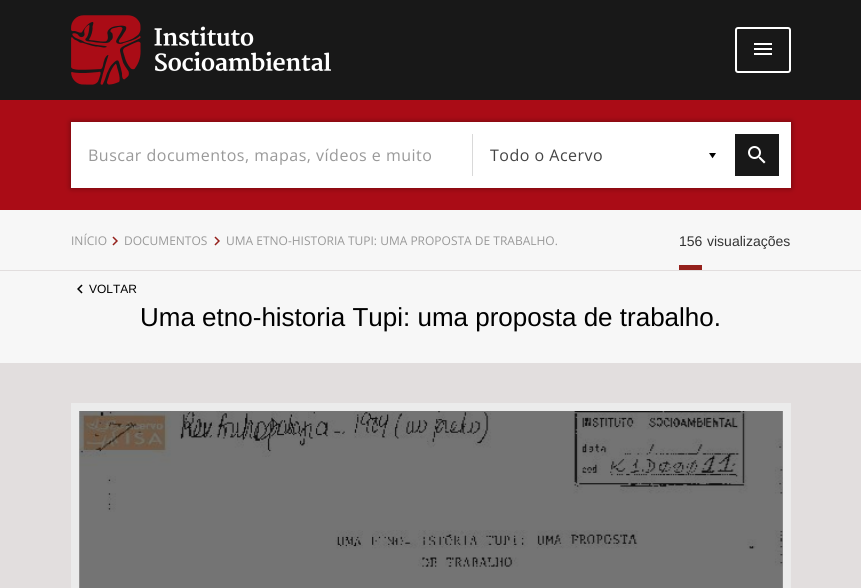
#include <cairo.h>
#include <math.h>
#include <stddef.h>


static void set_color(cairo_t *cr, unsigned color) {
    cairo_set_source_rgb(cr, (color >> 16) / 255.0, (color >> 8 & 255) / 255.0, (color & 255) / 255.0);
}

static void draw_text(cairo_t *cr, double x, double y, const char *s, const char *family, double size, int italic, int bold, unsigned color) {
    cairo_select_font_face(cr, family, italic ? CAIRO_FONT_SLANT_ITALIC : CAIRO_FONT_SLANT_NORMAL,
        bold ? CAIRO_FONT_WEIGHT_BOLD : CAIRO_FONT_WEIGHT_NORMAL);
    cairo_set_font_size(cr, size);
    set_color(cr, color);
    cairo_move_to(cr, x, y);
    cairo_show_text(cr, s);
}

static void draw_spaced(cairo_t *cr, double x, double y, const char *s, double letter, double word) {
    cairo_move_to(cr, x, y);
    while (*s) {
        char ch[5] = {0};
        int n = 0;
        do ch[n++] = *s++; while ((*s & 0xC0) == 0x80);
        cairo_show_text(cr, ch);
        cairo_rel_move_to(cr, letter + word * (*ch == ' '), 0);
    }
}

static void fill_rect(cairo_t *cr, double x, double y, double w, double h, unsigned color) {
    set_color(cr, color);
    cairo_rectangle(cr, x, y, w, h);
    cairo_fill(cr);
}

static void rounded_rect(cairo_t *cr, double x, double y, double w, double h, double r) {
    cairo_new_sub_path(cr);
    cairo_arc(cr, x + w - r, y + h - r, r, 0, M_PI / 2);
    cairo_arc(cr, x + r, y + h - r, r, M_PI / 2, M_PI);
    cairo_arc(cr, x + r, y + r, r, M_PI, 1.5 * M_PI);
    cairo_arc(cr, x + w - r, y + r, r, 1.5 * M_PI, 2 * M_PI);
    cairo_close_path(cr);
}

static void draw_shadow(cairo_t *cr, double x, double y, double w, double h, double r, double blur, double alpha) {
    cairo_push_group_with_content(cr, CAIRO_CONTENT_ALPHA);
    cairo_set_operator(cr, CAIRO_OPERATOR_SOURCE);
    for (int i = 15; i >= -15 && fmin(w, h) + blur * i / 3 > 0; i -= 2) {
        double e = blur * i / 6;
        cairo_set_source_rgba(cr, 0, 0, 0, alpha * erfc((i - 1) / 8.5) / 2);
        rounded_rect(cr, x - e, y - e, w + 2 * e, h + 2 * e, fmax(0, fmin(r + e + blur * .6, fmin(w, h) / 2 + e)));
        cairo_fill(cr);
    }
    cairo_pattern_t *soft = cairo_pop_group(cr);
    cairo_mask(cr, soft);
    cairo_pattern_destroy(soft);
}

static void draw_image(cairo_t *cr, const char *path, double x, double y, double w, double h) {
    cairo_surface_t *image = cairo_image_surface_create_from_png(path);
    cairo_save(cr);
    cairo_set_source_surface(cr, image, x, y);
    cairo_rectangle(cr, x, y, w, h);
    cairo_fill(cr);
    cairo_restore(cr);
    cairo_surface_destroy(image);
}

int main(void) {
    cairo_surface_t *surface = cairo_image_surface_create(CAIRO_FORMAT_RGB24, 861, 588);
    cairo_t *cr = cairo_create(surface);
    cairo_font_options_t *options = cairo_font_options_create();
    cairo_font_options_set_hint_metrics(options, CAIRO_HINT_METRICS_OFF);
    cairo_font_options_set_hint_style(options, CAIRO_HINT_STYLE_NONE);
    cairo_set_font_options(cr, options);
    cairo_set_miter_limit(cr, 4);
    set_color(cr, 0x181818);
    cairo_paint(cr);
    draw_image(cr, "assets/img1.png", 71, 15, 260, 70);
    rounded_rect(cr, 736, 28, 54, 44, 2);
    set_color(cr, 0xFFFFFF);
    cairo_stroke(cr);
    draw_image(cr, "assets/img2.png", 754, 43, 18, 12);
    fill_rect(cr, 0, 100, 861, 110, 0xAA0C16);
    set_color(cr, 0x000000);
    draw_shadow(cr, 71, 122, 720, 66, 0, 3, 0.4);
    fill_rect(cr, 71, 122, 720, 66, 0xFFFFFF);
    fill_rect(cr, 472, 134, 1, 42, 0xD9D9D9);
    cairo_select_font_face(cr, "Open Sans", CAIRO_FONT_SLANT_NORMAL, CAIRO_FONT_WEIGHT_NORMAL);
    cairo_set_font_size(cr, 16);
    set_color(cr, 0x999999);
    draw_spaced(cr, 88, 161, "Buscar documentos, mapas, vídeos e muito", 0.5, 0);
    set_color(cr, 0x444444);
    draw_spaced(cr, 490, 161, "Todo o Acervo", 0.5, 0);
    draw_image(cr, "assets/img3.png", 709, 153, 7, 6);
    fill_rect(cr, 735, 134, 44, 42, 0x181818);
    draw_image(cr, "assets/img4.png", 748, 146, 18, 18);
    fill_rect(cr, 0, 210, 861, 153, 0xF7F7F7);
    draw_text(cr, 71, 245, "INÍCIO", "Open Sans", 12, 0, 0, 0x999999);
    draw_image(cr, "assets/img5.png", 112, 236, 6, 10);
    draw_text(cr, 124, 245, "DOCUMENTOS", "Open Sans", 12, 0, 0, 0x999999);
    draw_image(cr, "assets/img5.png", 214, 236, 6, 10);
    draw_text(cr, 226, 245, "UMA ETNO-HISTORIA TUPI: UMA PROPOSTA DE TRABALHO.", "Open Sans", 12, 0, 0, 0x999999);
    fill_rect(cr, 679, 265, 23, 5, 0x95211C);
    draw_text(cr, 679, 246, "156", "Liberation Sans", 14, 0, 0, 0x333333);
    draw_text(cr, 707, 246, "visualizações", "Liberation Sans", 14, 0, 0, 0x333333);
    fill_rect(cr, 0, 270, 861, 1, 0xE2DEDE);
    draw_image(cr, "assets/img6.png", 77, 284, 6, 10);
    draw_text(cr, 89, 293, "VOLTAR", "Liberation Sans", 12, 0, 0, 0x000000);
    draw_text(cr, 140, 326, "Uma etno-historia Tupi: uma proposta de trabalho.", "Liberation Sans", 26, 0, 0, 0x000000);
    fill_rect(cr, 0, 363, 861, 225, 0xE2DEDE);
    cairo_rectangle(cr, 75, 407, 712, 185);
    set_color(cr, 0xEBEBEB);
    cairo_set_line_width(cr, 8);
    cairo_stroke(cr);
    draw_image(cr, "assets/img7.png", 79, 411, 704, 177);
    cairo_surface_write_to_png(surface, "output.png");
    cairo_font_options_destroy(options);
    cairo_destroy(cr);
    cairo_surface_destroy(surface);
    return 0;
}
